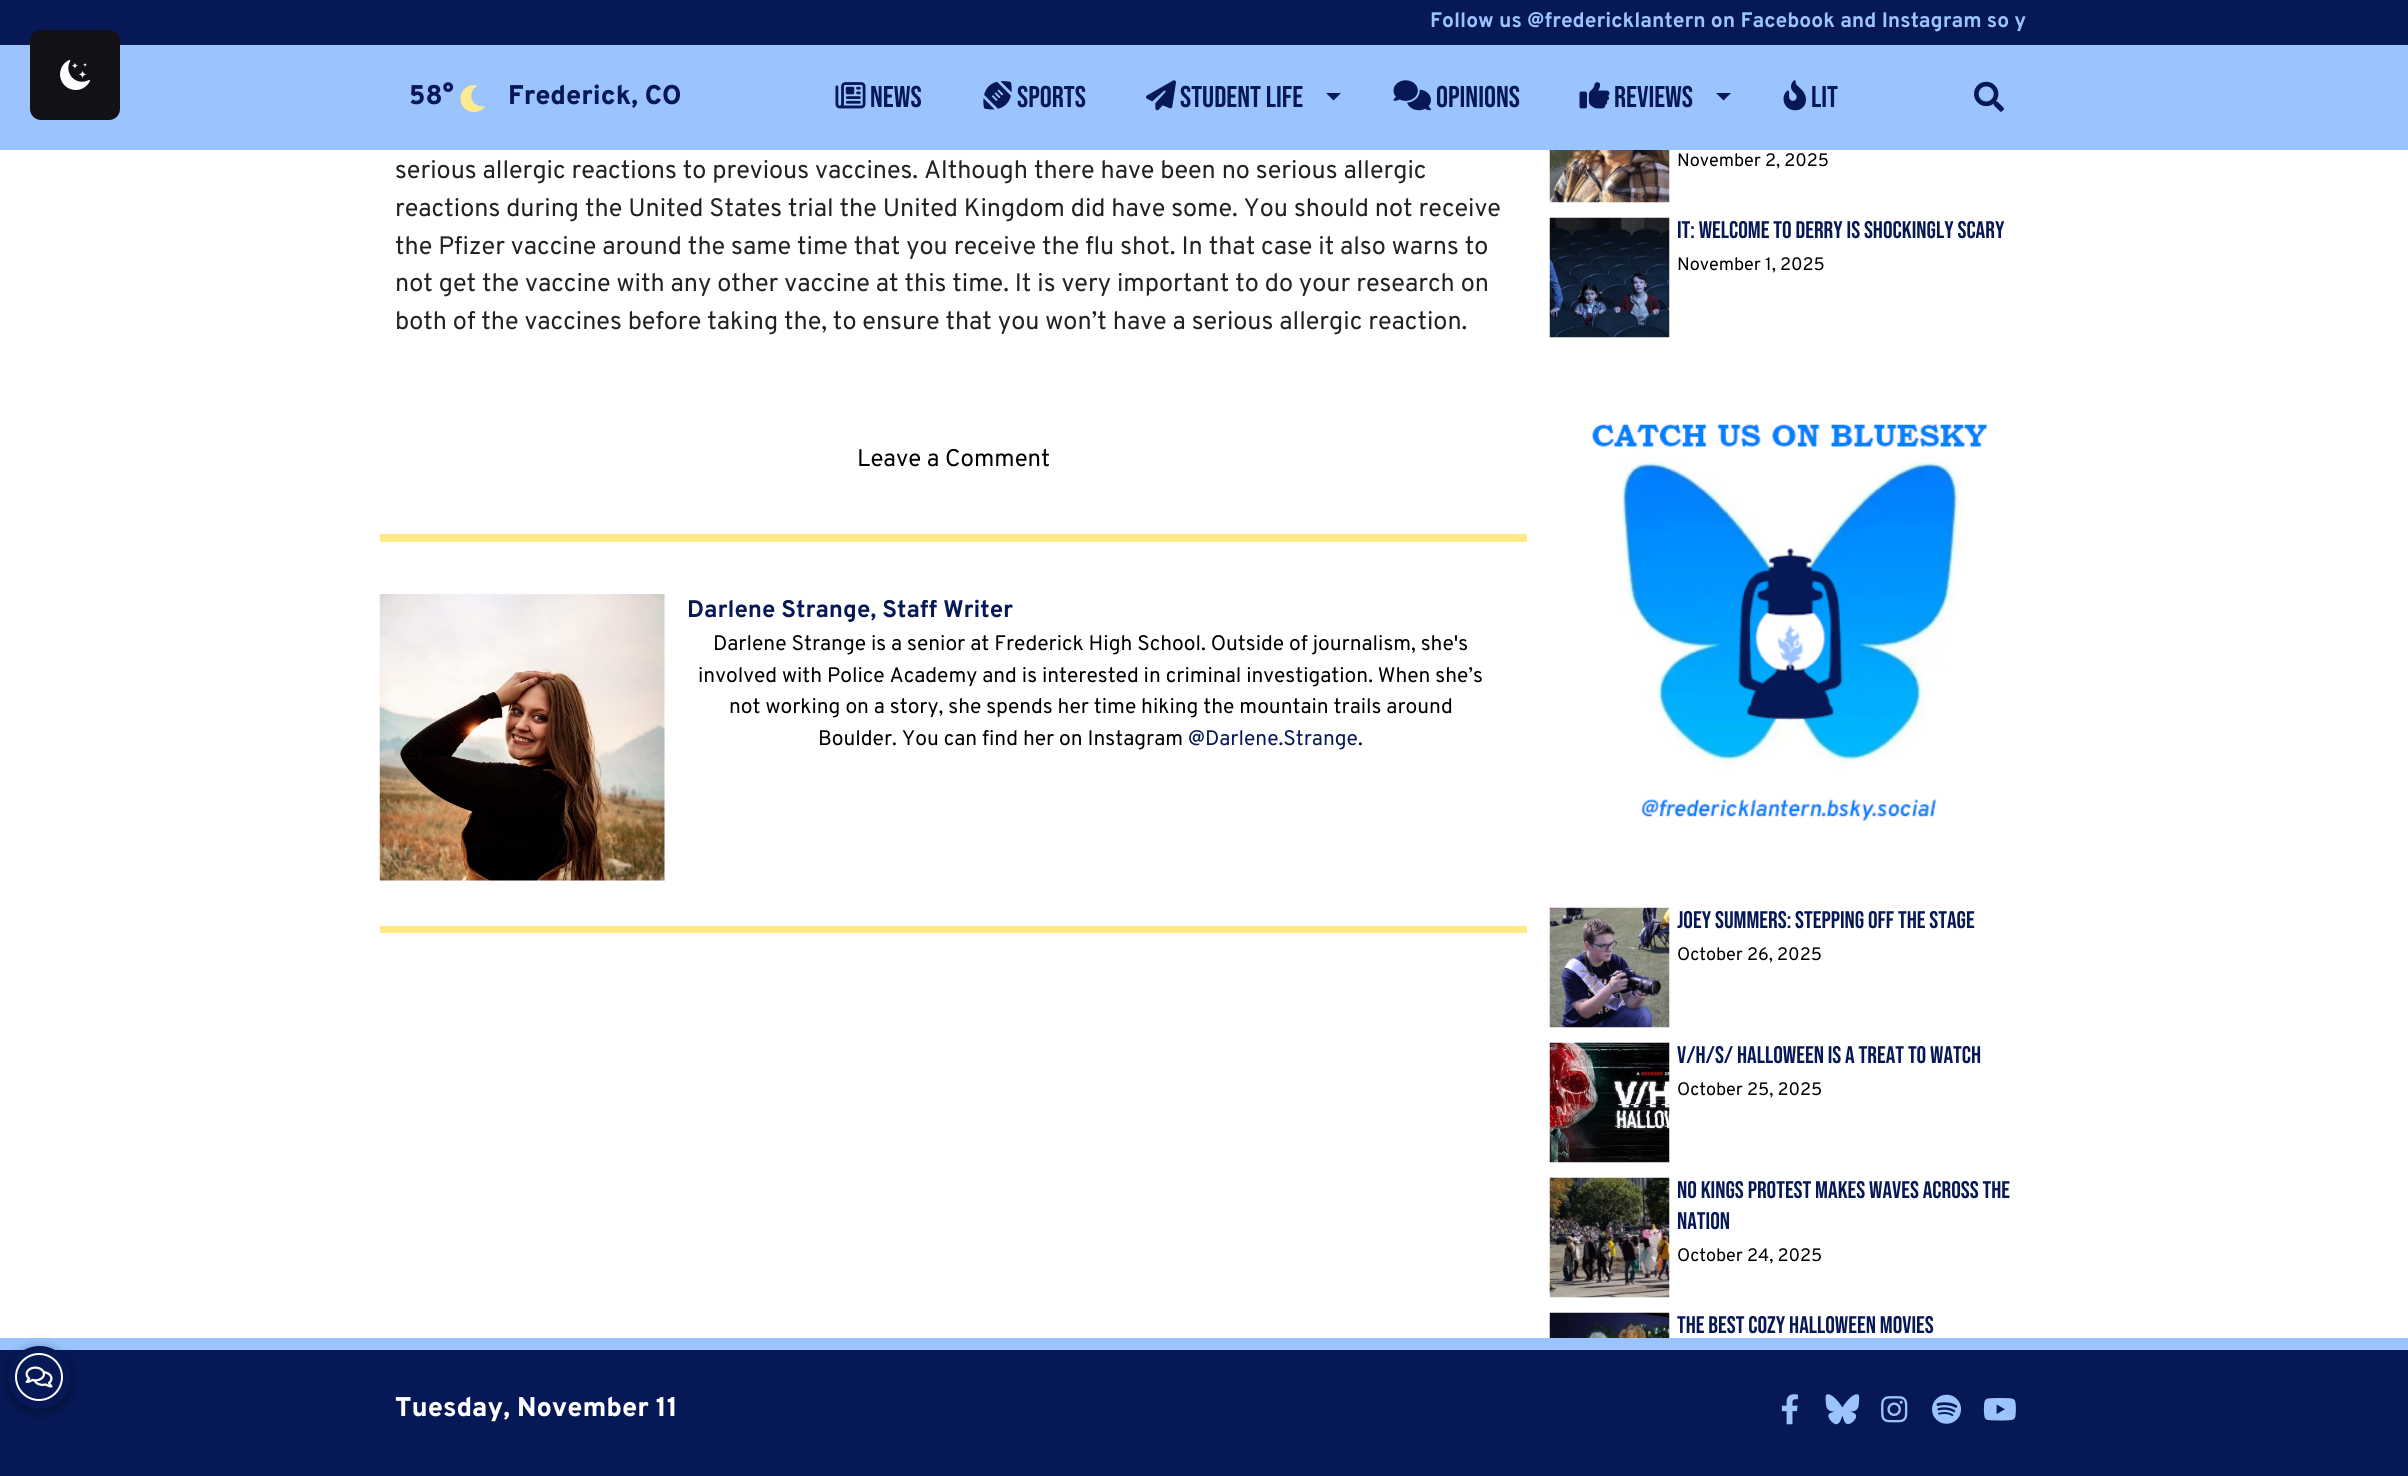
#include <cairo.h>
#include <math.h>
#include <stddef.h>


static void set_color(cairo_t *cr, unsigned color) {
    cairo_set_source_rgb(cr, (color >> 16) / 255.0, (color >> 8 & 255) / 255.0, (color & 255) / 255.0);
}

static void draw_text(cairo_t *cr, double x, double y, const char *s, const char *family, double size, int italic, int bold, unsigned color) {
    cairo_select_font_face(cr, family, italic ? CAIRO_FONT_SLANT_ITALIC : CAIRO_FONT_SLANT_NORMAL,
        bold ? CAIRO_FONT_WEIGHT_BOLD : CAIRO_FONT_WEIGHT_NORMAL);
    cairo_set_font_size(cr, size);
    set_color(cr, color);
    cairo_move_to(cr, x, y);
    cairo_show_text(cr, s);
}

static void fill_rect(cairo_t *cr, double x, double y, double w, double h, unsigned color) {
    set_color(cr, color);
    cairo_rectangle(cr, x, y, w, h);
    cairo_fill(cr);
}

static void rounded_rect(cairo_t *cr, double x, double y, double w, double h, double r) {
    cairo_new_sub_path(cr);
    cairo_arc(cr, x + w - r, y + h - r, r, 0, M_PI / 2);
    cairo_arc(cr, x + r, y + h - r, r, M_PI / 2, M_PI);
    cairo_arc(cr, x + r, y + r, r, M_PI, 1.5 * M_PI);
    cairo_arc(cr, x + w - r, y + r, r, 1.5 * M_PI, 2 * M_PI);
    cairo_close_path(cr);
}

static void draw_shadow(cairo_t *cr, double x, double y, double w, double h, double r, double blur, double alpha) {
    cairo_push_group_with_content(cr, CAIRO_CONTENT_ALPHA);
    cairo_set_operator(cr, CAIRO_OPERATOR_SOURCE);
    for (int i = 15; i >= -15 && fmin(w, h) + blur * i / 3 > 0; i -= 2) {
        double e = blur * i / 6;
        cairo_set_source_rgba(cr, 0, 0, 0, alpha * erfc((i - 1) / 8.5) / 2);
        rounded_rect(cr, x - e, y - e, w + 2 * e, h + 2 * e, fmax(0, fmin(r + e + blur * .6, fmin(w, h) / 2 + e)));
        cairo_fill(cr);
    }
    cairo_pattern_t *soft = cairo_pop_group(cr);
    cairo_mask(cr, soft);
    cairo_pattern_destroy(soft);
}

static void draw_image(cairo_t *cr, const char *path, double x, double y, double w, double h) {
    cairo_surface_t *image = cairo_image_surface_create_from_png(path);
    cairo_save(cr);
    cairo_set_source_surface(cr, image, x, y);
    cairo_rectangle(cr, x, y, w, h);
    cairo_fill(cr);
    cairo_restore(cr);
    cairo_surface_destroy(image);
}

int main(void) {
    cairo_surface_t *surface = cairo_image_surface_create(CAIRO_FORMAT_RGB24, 2408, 1476);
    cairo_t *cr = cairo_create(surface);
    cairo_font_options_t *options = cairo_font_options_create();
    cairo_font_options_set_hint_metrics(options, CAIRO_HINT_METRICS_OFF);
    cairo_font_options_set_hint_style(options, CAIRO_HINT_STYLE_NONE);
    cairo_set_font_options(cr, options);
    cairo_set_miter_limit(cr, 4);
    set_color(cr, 0xFFFFFF);
    cairo_paint(cr);
    fill_rect(cr, 0, 0, 2408, 45, 0x061856);
    fill_rect(cr, 0, 45, 2408, 105, 0x9BC4FF);
    set_color(cr, 0x121116);
    rounded_rect(cr, 30, 30, 90, 90, 11);
    cairo_fill(cr);
    draw_image(cr, "assets/img1.png", 60, 60, 30, 30);
    draw_text(cr, 1430, 27, "Follow us @fredericklantern on Facebook and Instagram so y", "Overpass", 21, 0, 1, 0x9BC4FF);
    draw_text(cr, 409, 104, "58°", "Overpass ExtraBold", 27, 0, 0, 0x061856);
    draw_image(cr, "assets/img2.png", 460, 85, 25, 28);
    draw_text(cr, 508, 104, "Frederick, CO", "Overpass ExtraBold", 27, 0, 0, 0x061856);
    draw_image(cr, "assets/img3.png", 835, 82, 31, 27);
    draw_text(cr, 870, 107, "NEWS", "Bebas Neue", 30, 0, 0, 0x061856);
    draw_image(cr, "assets/img4.png", 983, 81, 29, 29);
    draw_text(cr, 1017, 107, "SPORTS", "Bebas Neue", 30, 0, 0, 0x061856);
    draw_image(cr, "assets/img5.png", 1146, 80, 30, 31);
    draw_text(cr, 1180, 107, "STUDENT LIFE", "Bebas Neue", 30, 0, 0, 0x061856);
    cairo_new_path(cr);
    cairo_move_to(cr, 1326, 93);
    cairo_line_to(cr, 1341, 93);
    cairo_line_to(cr, 1333.5, 100.5);
    cairo_close_path(cr);
    cairo_fill(cr);
    draw_image(cr, "assets/img6.png", 1393, 80, 38, 31);
    draw_text(cr, 1436, 107, "OPINIONS", "Bebas Neue", 30, 0, 0, 0x061856);
    draw_image(cr, "assets/img7.png", 1579, 82, 31, 27);
    draw_text(cr, 1614, 107, "REVIEWS", "Bebas Neue", 30, 0, 0, 0x061856);
    cairo_new_path(cr);
    cairo_move_to(cr, 1716, 93);
    cairo_line_to(cr, 1731, 93);
    cairo_line_to(cr, 1723.5, 100.5);
    cairo_close_path(cr);
    cairo_fill(cr);
    draw_image(cr, "assets/img8.png", 1783, 80, 23, 31);
    draw_text(cr, 1811, 107, "LIT", "Bebas Neue", 30, 0, 0, 0x061856);
    draw_image(cr, "assets/img9.png", 1974, 81, 30, 31);
    draw_text(cr, 395, 178, "serious allergic reactions to previous vaccines. Although there have been no serious allergic", "Overpass", 25.2, 0, 0, 0x222222);
    draw_text(cr, 395, 216, "reactions during the United States trial the United Kingdom did have some. You should not receive", "Overpass", 25.2, 0, 0, 0x222222);
    draw_text(cr, 395, 254, "the Pfizer vaccine around the same time that you receive the flu shot. In that case it also warns to", "Overpass", 25.2, 0, 0, 0x222222);
    draw_text(cr, 395, 291, "not get the vaccine with any other vaccine at this time. It is very important to do your research on", "Overpass", 25.2, 0, 0, 0x222222);
    draw_text(cr, 395, 329, "both of the vaccines before taking the, to ensure that you won’t have a serious allergic reaction.", "Overpass", 25.2, 0, 0, 0x222222);
    draw_text(cr, 857, 466, "Leave a Comment", "Overpass", 24, 0, 0, 0x000000);
    fill_rect(cr, 380, 534, 1147, 8, 0xFFEA87);
    fill_rect(cr, 380, 926, 1147, 7, 0xFFEA87);
    draw_image(cr, "assets/img10.png", 379, 594, 286, 287);
    draw_text(cr, 687, 617, "Darlene Strange, Staff Writer", "Overpass", 24, 0, 1, 0x061856);
    draw_text(cr, 713, 650, "Darlene Strange is a senior at Frederick High School. Outside of journalism, she's", "Overpass", 21, 0, 0, 0x000000);
    draw_text(cr, 698, 682, "involved with Police Academy and is interested in criminal investigation. When she’s", "Overpass", 21, 0, 0, 0x000000);
    draw_text(cr, 729, 713, "not working on a story, she spends her time hiking the mountain trails around", "Overpass", 21, 0, 0, 0x000000);
    draw_text(cr, 818, 745, "Boulder. You can find her on Instagram", "Overpass", 21, 0, 0, 0x000000);
    draw_text(cr, 1188, 745, "@Darlene.Strange", "Overpass", 21, 0, 0, 0x061856);
    draw_text(cr, 1358, 745, ".", "Overpass", 21, 0, 0, 0x000000);
    draw_image(cr, "assets/img11.png", 1549, 150, 121, 53);
    draw_text(cr, 1677, 166, "November 2, 2025", "Overpass", 18, 0, 0, 0x000000);
    draw_image(cr, "assets/img12.png", 1549, 217, 121, 121);
    draw_text(cr, 1677, 238, "It: Welcome to Derry Is Shockingly Scary", "Bebas Neue", 24, 0, 0, 0x061856);
    draw_text(cr, 1677, 270, "November 1, 2025", "Overpass", 18, 0, 0, 0x000000);
    draw_image(cr, "assets/img13.png", 1592, 424, 396, 397);
    draw_image(cr, "assets/img14.png", 1549, 907, 121, 121);
    draw_text(cr, 1677, 928, "JOEY SUMMERS: Stepping off the Stage", "Bebas Neue", 24, 0, 0, 0x061856);
    draw_text(cr, 1677, 960, "October 26, 2025", "Overpass", 18, 0, 0, 0x000000);
    draw_image(cr, "assets/img15.png", 1549, 1042, 121, 121);
    draw_text(cr, 1677, 1063, "V/H/S/ Halloween Is a Treat to Watch", "Bebas Neue", 24, 0, 0, 0x061856);
    draw_text(cr, 1677, 1095, "October 25, 2025", "Overpass", 18, 0, 0, 0x000000);
    draw_image(cr, "assets/img16.png", 1549, 1177, 121, 121);
    draw_text(cr, 1677, 1198, "No Kings Protest Makes Waves Across the", "Bebas Neue", 24, 0, 0, 0x061856);
    draw_text(cr, 1677, 1229, "Nation", "Bebas Neue", 24, 0, 0, 0x061856);
    draw_text(cr, 1677, 1261, "October 24, 2025", "Overpass", 18, 0, 0, 0x000000);
    draw_image(cr, "assets/img17.png", 1549, 1312, 121, 26);
    draw_text(cr, 1677, 1333, "The Best Cozy Halloween Movies", "Bebas Neue", 24, 0, 0, 0x061856);
    fill_rect(cr, 0, 1350, 2408, 126, 0x061856);
    fill_rect(cr, 0, 1338, 2408, 12, 0x9BC4FF);
    draw_text(cr, 395, 1416, "Tuesday, November 11", "Overpass ExtraBold", 27, 0, 0, 0xFFFFFF);
    draw_image(cr, "assets/img18.png", 1781, 1394, 17, 31);
    draw_image(cr, "assets/img19.png", 1825, 1394, 35, 31);
    draw_image(cr, "assets/img20.png", 1881, 1396, 27, 27);
    draw_image(cr, "assets/img21.png", 1932, 1394, 30, 30);
    draw_image(cr, "assets/img22.png", 1983, 1398, 33, 23);
    set_color(cr, 0x000000);
    draw_shadow(cr, 8, 1349, 63, 63, 31.5, 6, 0.4);
    set_color(cr, 0x061856);
    cairo_arc(cr, 39.5, 1377.5, 31.5, 0, 2 * M_PI);
    cairo_fill(cr);
    cairo_arc(cr, 39, 1377, 23, 0, 2 * M_PI);
    set_color(cr, 0xFFFFFF);
    cairo_stroke(cr);
    draw_image(cr, "assets/img23.png", 25, 1366, 28, 22);
    cairo_surface_write_to_png(surface, "output.png");
    cairo_font_options_destroy(options);
    cairo_destroy(cr);
    cairo_surface_destroy(surface);
    return 0;
}
